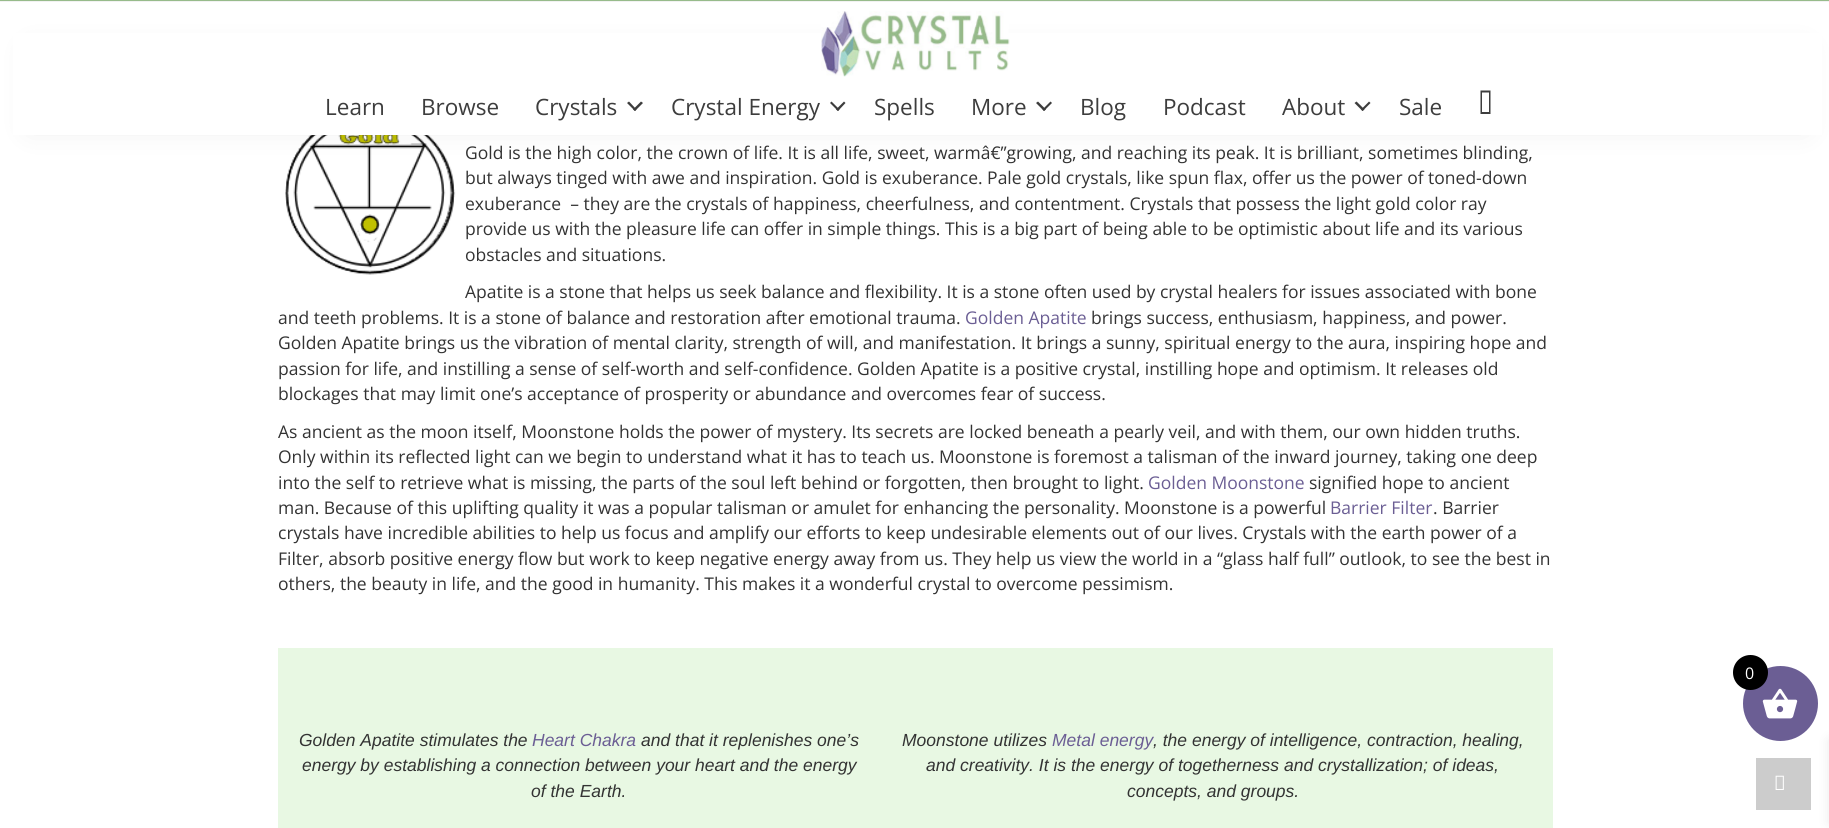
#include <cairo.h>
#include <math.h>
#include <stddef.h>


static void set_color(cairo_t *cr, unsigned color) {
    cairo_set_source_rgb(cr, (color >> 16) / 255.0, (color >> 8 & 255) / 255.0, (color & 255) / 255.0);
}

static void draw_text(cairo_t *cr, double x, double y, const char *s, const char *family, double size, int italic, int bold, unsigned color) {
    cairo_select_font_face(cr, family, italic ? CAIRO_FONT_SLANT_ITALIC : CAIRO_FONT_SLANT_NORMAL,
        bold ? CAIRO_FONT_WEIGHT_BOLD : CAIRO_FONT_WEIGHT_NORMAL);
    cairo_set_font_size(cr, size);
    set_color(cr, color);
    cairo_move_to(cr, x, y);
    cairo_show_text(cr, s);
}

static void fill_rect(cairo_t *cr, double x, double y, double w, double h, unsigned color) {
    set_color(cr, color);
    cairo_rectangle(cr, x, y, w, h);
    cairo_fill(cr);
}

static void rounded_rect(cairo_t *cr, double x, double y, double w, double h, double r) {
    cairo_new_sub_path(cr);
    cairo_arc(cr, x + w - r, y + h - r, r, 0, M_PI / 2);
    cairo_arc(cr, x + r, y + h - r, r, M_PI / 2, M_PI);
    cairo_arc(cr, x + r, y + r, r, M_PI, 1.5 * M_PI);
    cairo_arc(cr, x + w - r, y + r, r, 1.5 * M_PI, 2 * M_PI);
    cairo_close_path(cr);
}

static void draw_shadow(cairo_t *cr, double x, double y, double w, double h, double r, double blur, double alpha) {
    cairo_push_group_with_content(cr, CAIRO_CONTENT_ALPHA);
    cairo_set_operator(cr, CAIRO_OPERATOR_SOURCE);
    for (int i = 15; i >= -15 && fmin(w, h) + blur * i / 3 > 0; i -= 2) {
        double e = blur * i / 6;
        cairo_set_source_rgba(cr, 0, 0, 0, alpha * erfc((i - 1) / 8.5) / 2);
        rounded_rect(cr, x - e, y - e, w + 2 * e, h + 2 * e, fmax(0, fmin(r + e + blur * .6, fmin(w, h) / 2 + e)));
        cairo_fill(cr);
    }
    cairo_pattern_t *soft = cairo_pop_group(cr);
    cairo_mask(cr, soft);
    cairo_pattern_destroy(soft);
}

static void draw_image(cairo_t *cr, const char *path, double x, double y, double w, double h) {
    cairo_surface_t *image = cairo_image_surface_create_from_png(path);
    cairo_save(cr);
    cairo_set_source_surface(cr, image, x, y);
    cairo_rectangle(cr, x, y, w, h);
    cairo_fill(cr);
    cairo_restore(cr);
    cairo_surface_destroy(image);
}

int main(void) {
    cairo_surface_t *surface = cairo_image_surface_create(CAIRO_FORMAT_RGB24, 1829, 828);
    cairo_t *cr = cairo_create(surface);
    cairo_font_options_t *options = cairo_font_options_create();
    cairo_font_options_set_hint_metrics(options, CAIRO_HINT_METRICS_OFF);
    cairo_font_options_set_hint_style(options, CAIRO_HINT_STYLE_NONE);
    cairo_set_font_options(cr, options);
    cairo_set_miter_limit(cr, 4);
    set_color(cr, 0xFFFFFF);
    cairo_paint(cr);
    fill_rect(cr, 0, 0, 1829, 1, 0x97BB8B);
    draw_image(cr, "assets/img2.png", 285, 135, 171, 140);
    set_color(cr, 0x000000);
    draw_shadow(cr, 30, 50, 1775, 79, 0, 14, 0.09);
    fill_rect(cr, 13, 33, 1809, 102, 0xFFFFFF);
    fill_rect(cr, 0, 1, 1829, 1, 0xF2F2F2);
    draw_image(cr, "assets/img1.png", 821, 11, 189, 66);
    draw_text(cr, 325, 115, "Learn", "Open Sans", 22.5, 0, 0, 0x3D3D3D);
    draw_text(cr, 421, 115, "Browse", "Open Sans", 22.5, 0, 0, 0x3D3D3D);
    draw_text(cr, 535, 115, "Crystals", "Open Sans", 22.5, 0, 0, 0x3D3D3D);
    cairo_new_path(cr);
    cairo_move_to(cr, 641, 101.5);
    cairo_line_to(cr, 643, 103);
    cairo_line_to(cr, 635, 111);
    cairo_line_to(cr, 633, 109.5);
    cairo_close_path(cr);
    cairo_fill(cr);
    cairo_new_path(cr);
    cairo_move_to(cr, 629, 101.5);
    cairo_line_to(cr, 636.5, 109.5);
    cairo_line_to(cr, 635, 111);
    cairo_line_to(cr, 627, 103);
    cairo_close_path(cr);
    cairo_fill(cr);
    draw_text(cr, 671, 115, "Crystal Energy", "Open Sans", 22.5, 0, 0, 0x3D3D3D);
    cairo_new_path(cr);
    cairo_move_to(cr, 844, 101.5);
    cairo_line_to(cr, 845.5, 103);
    cairo_line_to(cr, 838, 111);
    cairo_line_to(cr, 836, 109.5);
    cairo_close_path(cr);
    cairo_fill(cr);
    cairo_new_path(cr);
    cairo_move_to(cr, 831.5, 101.5);
    cairo_line_to(cr, 839.5, 109.5);
    cairo_line_to(cr, 838, 111);
    cairo_line_to(cr, 830, 103);
    cairo_close_path(cr);
    cairo_fill(cr);
    draw_text(cr, 874, 115, "Spells", "Open Sans", 22.5, 0, 0, 0x3D3D3D);
    draw_text(cr, 971, 115, "More", "Open Sans", 22.5, 0, 0, 0x3D3D3D);
    cairo_new_path(cr);
    cairo_move_to(cr, 1050.5, 101.5);
    cairo_line_to(cr, 1052, 103);
    cairo_line_to(cr, 1044, 111);
    cairo_line_to(cr, 1042.5, 109.5);
    cairo_close_path(cr);
    cairo_fill(cr);
    cairo_new_path(cr);
    cairo_move_to(cr, 1038, 101.5);
    cairo_line_to(cr, 1046, 109.5);
    cairo_line_to(cr, 1044, 111);
    cairo_line_to(cr, 1036, 103);
    cairo_close_path(cr);
    cairo_fill(cr);
    draw_text(cr, 1080, 115, "Blog", "Open Sans", 22.5, 0, 0, 0x3D3D3D);
    draw_text(cr, 1163, 115, "Podcast", "Open Sans", 22.5, 0, 0, 0x3D3D3D);
    draw_text(cr, 1282, 115, "About", "Open Sans", 22.5, 0, 0, 0x3D3D3D);
    cairo_new_path(cr);
    cairo_move_to(cr, 1369, 101.5);
    cairo_line_to(cr, 1370.5, 103);
    cairo_line_to(cr, 1362.5, 111);
    cairo_line_to(cr, 1361, 109.5);
    cairo_close_path(cr);
    cairo_fill(cr);
    cairo_new_path(cr);
    cairo_move_to(cr, 1356.5, 101.5);
    cairo_line_to(cr, 1364.5, 109.5);
    cairo_line_to(cr, 1362.5, 111);
    cairo_line_to(cr, 1354.5, 103);
    cairo_close_path(cr);
    cairo_fill(cr);
    draw_text(cr, 1399, 115, "Sale", "Open Sans", 22.5, 0, 0, 0x3D3D3D);
    cairo_new_path(cr);
    cairo_move_to(cr, 1482, 112);
    cairo_line_to(cr, 1489, 112);
    cairo_line_to(cr, 1489, 92.5);
    cairo_line_to(cr, 1482, 92.5);
    cairo_close_path(cr);
    cairo_move_to(cr, 1480.5, 114);
    cairo_line_to(cr, 1480.5, 90.5);
    cairo_line_to(cr, 1490.5, 90.5);
    cairo_line_to(cr, 1490.5, 114);
    cairo_close_path(cr);
    cairo_fill(cr);
    draw_text(cr, 465, 159, "Gold is the high color, the crown of life. It is all life, sweet, warmâ€”growing, and reaching its peak. It is brilliant, sometimes blinding,", "Open Sans", 17.5, 0, 0, 0x333333);
    draw_text(cr, 465, 184, "but always tinged with awe and inspiration. Gold is exuberance. Pale gold crystals, like spun flax, offer us the power of toned-down", "Open Sans", 17.5, 0, 0, 0x333333);
    draw_text(cr, 465, 210, "exuberance  – they are the crystals of happiness, cheerfulness, and contentment. Crystals that possess the light gold color ray", "Open Sans", 17.5, 0, 0, 0x333333);
    draw_text(cr, 465, 235, "provide us with the pleasure life can offer in simple things. This is a big part of being able to be optimistic about life and its various", "Open Sans", 17.5, 0, 0, 0x333333);
    draw_text(cr, 465, 261, "obstacles and situations.", "Open Sans", 17.5, 0, 0, 0x333333);
    draw_text(cr, 465, 298, "Apatite is a stone that helps us seek balance and flexibility. It is a stone often used by crystal healers for issues associated with bone", "Open Sans", 17.5, 0, 0, 0x333333);
    draw_text(cr, 278, 324, "and teeth problems. It is a stone of balance and restoration after emotional trauma.", "Open Sans", 17.5, 0, 0, 0x333333);
    draw_text(cr, 965, 324, "Golden Apatite", "Open Sans", 17.5, 0, 0, 0x6B5E94);
    draw_text(cr, 1091, 324, "brings success, enthusiasm, happiness, and power.", "Open Sans", 17.5, 0, 0, 0x333333);
    draw_text(cr, 278, 349, "Golden Apatite brings us the vibration of mental clarity, strength of will, and manifestation. It brings a sunny, spiritual energy to the aura, inspiring hope and", "Open Sans", 17.5, 0, 0, 0x333333);
    draw_text(cr, 278, 375, "passion for life, and instilling a sense of self-worth and self-confidence. Golden Apatite is a positive crystal, instilling hope and optimism. It releases old", "Open Sans", 17.5, 0, 0, 0x333333);
    draw_text(cr, 278, 400, "blockages that may limit one’s acceptance of prosperity or abundance and overcomes fear of success.", "Open Sans", 17.5, 0, 0, 0x333333);
    draw_text(cr, 278, 438, "As ancient as the moon itself, Moonstone holds the power of mystery. Its secrets are locked beneath a pearly veil, and with them, our own hidden truths.", "Open Sans", 17.5, 0, 0, 0x333333);
    draw_text(cr, 278, 463, "Only within its reflected light can we begin to understand what it has to teach us. Moonstone is foremost a talisman of the inward journey, taking one deep", "Open Sans", 17.5, 0, 0, 0x333333);
    draw_text(cr, 278, 489, "into the self to retrieve what is missing, the parts of the soul left behind or forgotten, then brought to light.", "Open Sans", 17.5, 0, 0, 0x333333);
    draw_text(cr, 1148, 489, "Golden Moonstone", "Open Sans", 17.5, 0, 0, 0x6B5E94);
    draw_text(cr, 1309, 489, "signified hope to ancient", "Open Sans", 17.5, 0, 0, 0x333333);
    draw_text(cr, 278, 514, "man. Because of this uplifting quality it was a popular talisman or amulet for enhancing the personality. Moonstone is a powerful", "Open Sans", 17.5, 0, 0, 0x333333);
    draw_text(cr, 1330, 514, "Barrier Filter", "Open Sans", 17.5, 0, 0, 0x6B5E94);
    draw_text(cr, 1433, 514, ". Barrier", "Open Sans", 17.5, 0, 0, 0x333333);
    draw_text(cr, 278, 539, "crystals have incredible abilities to help us focus and amplify our efforts to keep undesirable elements out of our lives. Crystals with the earth power of a", "Open Sans", 17.5, 0, 0, 0x333333);
    draw_text(cr, 278, 565, "Filter, absorb positive energy flow but work to keep negative energy away from us. They help us view the world in a “glass half full” outlook, to see the best in", "Open Sans", 17.5, 0, 0, 0x333333);
    draw_text(cr, 278, 590, "others, the beauty in life, and the good in humanity. This makes it a wonderful crystal to overcome pessimism.", "Open Sans", 17.5, 0, 0, 0x333333);
    fill_rect(cr, 278, 648, 1275, 180, 0xE8F8E3);
    draw_text(cr, 299, 746, "Golden Apatite stimulates the", "Liberation Sans", 17.5, 1, 0, 0x333333);
    draw_text(cr, 532, 746, "Heart Chakra", "Liberation Sans", 17.5, 1, 0, 0x6B5E94);
    draw_text(cr, 641, 746, "and that it replenishes one’s", "Liberation Sans", 17.5, 1, 0, 0x333333);
    draw_text(cr, 302, 771, "energy by establishing a connection between your heart and the energy", "Liberation Sans", 17.5, 1, 0, 0x333333);
    draw_text(cr, 531, 797, "of the Earth.", "Liberation Sans", 17.5, 1, 0, 0x333333);
    draw_text(cr, 902, 746, "Moonstone utilizes", "Liberation Sans", 17.5, 1, 0, 0x333333);
    draw_text(cr, 1052, 746, "Metal energy", "Liberation Sans", 17.5, 1, 0, 0x6B5E94);
    draw_text(cr, 1153, 746, ", the energy of intelligence, contraction, healing,", "Liberation Sans", 17.5, 1, 0, 0x333333);
    draw_text(cr, 926, 771, "and creativity. It is the energy of togetherness and crystallization; of ideas,", "Liberation Sans", 17.5, 1, 0, 0x333333);
    draw_text(cr, 1127, 797, "concepts, and groups.", "Liberation Sans", 17.5, 1, 0, 0x333333);
    set_color(cr, 0x000000);
    draw_shadow(cr, 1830, 740, 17, 83, 0, 6, 0.1);
    set_color(cr, 0x6B5E94);
    cairo_arc(cr, 1780.5, 703.5, 37.5, 0, 2 * M_PI);
    cairo_fill(cr);
    draw_image(cr, "assets/img3.png", 1762, 688, 36, 31);
    set_color(cr, 0x000000);
    cairo_arc(cr, 1750.5, 672.5, 17.5, 0, 2 * M_PI);
    cairo_fill(cr);
    draw_text(cr, 1745, 679, "0", "Open Sans", 16, 0, 0, 0xFFFFFF);
    fill_rect(cr, 1756, 758, 55, 52, 0xCCCCCC);
    draw_image(cr, "assets/img4.png", 1775, 775, 9, 15);
    cairo_surface_write_to_png(surface, "output.png");
    cairo_font_options_destroy(options);
    cairo_destroy(cr);
    cairo_surface_destroy(surface);
    return 0;
}
